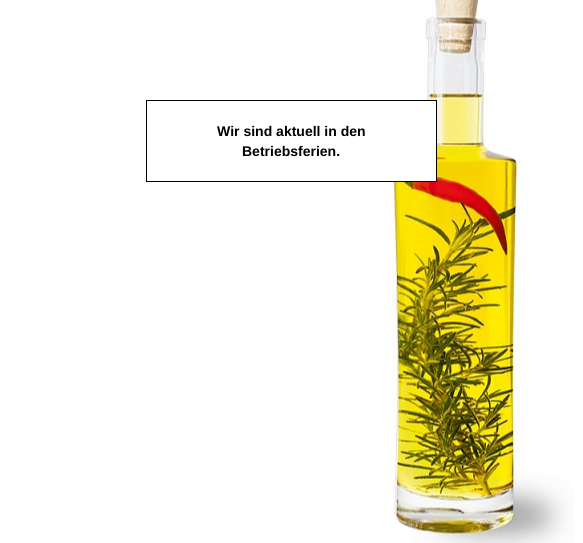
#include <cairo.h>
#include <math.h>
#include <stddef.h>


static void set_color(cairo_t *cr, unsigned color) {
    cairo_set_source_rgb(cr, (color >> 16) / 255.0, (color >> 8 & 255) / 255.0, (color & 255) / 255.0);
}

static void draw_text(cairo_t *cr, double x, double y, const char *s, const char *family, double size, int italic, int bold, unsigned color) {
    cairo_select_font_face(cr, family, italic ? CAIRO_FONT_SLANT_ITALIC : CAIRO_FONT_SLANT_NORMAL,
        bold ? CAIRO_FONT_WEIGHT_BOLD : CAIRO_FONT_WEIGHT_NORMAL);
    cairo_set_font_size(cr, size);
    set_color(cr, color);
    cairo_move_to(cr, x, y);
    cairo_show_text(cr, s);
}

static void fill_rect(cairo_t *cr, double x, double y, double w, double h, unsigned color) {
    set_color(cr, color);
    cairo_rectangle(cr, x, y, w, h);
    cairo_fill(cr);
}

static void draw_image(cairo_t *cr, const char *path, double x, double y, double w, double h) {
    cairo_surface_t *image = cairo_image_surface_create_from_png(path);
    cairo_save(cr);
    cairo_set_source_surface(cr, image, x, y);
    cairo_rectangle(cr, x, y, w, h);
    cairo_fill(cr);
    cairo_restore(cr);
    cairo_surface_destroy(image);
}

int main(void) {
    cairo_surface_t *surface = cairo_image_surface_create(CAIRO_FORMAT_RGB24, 583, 543);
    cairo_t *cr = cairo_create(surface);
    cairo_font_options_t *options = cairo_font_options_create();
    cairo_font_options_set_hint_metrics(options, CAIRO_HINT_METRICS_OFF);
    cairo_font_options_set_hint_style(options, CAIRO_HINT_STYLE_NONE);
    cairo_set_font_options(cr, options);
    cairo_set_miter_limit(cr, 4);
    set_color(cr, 0xFFFFFF);
    cairo_paint(cr);
    draw_image(cr, "assets/img1.png", 393, 0, 181, 543);
    fill_rect(cr, 393, 101, 43, 80, 0xFFFFFF);
    cairo_rectangle(cr, 146.5, 100.5, 290, 81);
    set_color(cr, 0x000000);
    cairo_set_line_width(cr, 1);
    cairo_stroke(cr);
    draw_text(cr, 217, 136, "Wir sind aktuell in den", "Liberation Sans", 14, 0, 1, 0x000000);
    draw_text(cr, 242, 156, "Betriebsferien.", "Liberation Sans", 14, 0, 1, 0x000000);
    cairo_surface_write_to_png(surface, "output.png");
    cairo_font_options_destroy(options);
    cairo_destroy(cr);
    cairo_surface_destroy(surface);
    return 0;
}
